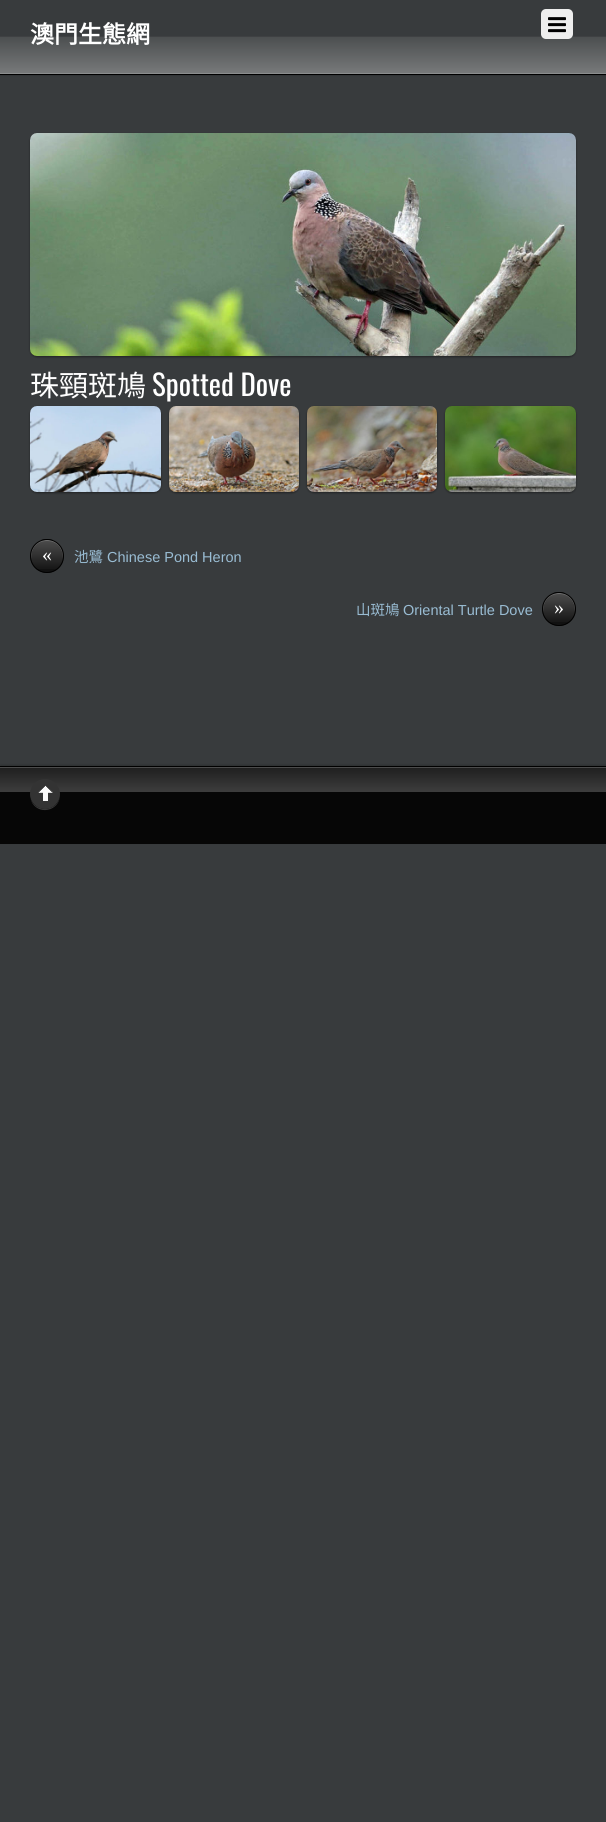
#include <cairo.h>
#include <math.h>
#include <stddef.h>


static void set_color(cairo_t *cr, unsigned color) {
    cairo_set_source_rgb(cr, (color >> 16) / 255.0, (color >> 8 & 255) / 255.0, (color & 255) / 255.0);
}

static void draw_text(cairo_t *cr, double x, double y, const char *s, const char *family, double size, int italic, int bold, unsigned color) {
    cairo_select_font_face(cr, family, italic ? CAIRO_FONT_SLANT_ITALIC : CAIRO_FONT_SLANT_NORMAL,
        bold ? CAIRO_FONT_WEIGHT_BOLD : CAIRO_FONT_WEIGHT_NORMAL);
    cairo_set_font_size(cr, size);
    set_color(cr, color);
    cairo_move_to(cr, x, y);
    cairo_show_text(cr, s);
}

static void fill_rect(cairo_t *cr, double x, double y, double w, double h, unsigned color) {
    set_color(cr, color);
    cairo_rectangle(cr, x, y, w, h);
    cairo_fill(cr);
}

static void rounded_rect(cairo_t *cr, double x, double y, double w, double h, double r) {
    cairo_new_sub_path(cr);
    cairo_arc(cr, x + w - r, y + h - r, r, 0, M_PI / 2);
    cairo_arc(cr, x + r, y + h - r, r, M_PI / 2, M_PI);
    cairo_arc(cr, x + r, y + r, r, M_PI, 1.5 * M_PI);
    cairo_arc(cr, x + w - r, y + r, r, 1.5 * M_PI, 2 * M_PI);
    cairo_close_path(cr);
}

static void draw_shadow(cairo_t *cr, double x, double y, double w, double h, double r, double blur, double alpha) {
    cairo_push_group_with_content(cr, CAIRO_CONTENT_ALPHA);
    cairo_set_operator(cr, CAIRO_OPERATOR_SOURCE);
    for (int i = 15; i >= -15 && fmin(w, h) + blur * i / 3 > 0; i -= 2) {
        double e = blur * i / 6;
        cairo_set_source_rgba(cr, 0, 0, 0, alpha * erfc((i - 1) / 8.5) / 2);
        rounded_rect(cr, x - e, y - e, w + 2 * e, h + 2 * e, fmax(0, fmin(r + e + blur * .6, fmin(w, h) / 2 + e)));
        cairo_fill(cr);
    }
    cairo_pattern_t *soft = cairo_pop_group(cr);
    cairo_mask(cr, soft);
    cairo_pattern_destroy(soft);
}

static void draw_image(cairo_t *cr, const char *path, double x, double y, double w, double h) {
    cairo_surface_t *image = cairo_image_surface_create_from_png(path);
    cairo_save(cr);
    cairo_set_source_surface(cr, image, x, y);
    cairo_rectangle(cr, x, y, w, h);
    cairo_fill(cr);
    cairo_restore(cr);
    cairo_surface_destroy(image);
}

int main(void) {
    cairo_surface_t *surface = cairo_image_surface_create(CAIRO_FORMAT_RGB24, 606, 1822);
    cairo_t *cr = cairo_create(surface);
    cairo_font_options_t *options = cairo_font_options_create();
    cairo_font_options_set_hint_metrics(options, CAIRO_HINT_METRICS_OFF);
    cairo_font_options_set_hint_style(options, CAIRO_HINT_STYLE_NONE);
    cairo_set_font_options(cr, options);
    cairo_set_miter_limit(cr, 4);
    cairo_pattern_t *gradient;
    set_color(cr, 0x383B3D);
    cairo_paint(cr);
    set_color(cr, 0x000000);
    draw_shadow(cr, 0, 0, 606, 75, 0, 1, 0.3);
    gradient = cairo_pattern_create_linear(303, 74, 303, 0);
    cairo_pattern_add_color_stop_rgba(gradient, 0, 0.471, 0.478, 0.482, 1);
    cairo_pattern_add_color_stop_rgba(gradient, 0.5, 0.298, 0.31, 0.314, 1);
    cairo_pattern_add_color_stop_rgba(gradient, 0.51, 0.22, 0.231, 0.239, 1);
    cairo_set_source(cr, gradient);
    cairo_pattern_destroy(gradient);
    cairo_rectangle(cr, 0, 0, 606, 73);
    cairo_fill(cr);
    fill_rect(cr, 0, 73, 606, 1, 0x8B8D8E);
    fill_rect(cr, 0, 74, 606, 1, 0x000000);
    draw_text(cr, 30, 43, "澳門生態網", "Noto Sans CJK HK", 24, 0, 1, 0xFFFFFF);
    set_color(cr, 0xEEEEEE);
    rounded_rect(cr, 541, 9, 32, 30, 5);
    cairo_fill(cr);
    draw_image(cr, "assets/img1.png", 548, 17, 18, 16);
    set_color(cr, 0x000000);
    draw_shadow(cr, 30, 134, 546, 223, 7, 1, 0.4);
    draw_image(cr, "assets/img2.png", 30, 133, 546, 223);
    draw_text(cr, 30, 396, "珠頸斑鳩", "Noto Sans CJK HK", 29, 0, 0, 0xFFFFFF);
    draw_text(cr, 152, 396, "Spotted Dove", "Oswald", 29, 0, 0, 0xFFFFFF);
    set_color(cr, 0x000000);
    draw_shadow(cr, 30, 407, 131, 86, 7, 1, 0.4);
    draw_image(cr, "assets/img3.png", 30, 406, 131, 86);
    draw_shadow(cr, 169, 407, 130, 86, 7, 1, 0.4);
    draw_image(cr, "assets/img4.png", 169, 406, 130, 86);
    draw_shadow(cr, 307, 407, 130, 86, 7, 1, 0.4);
    draw_image(cr, "assets/img5.png", 307, 406, 130, 86);
    draw_shadow(cr, 445, 407, 131, 86, 7, 1, 0.4);
    draw_image(cr, "assets/img6.png", 445, 406, 131, 86);
    set_color(cr, 0x111111);
    cairo_arc(cr, 47, 556, 17, 0, 2 * M_PI);
    cairo_fill(cr);
    cairo_save(cr);
    rounded_rect(cr, 30, 539, 34, 34, 17);
    cairo_clip(cr);
    gradient = cairo_pattern_create_linear(47, 540, 47, 572);
    cairo_pattern_add_color_stop_rgba(gradient, 0, 1, 1, 1, 0.25);
    cairo_pattern_add_color_stop_rgba(gradient, 1, 1, 1, 1, 0);
    cairo_set_source(cr, gradient);
    cairo_pattern_destroy(gradient);
    cairo_rectangle(cr, 30, 540, 34, 29);
    cairo_fill(cr);
    cairo_restore(cr);
    cairo_set_source_rgba(cr, 1, 1, 1, 0.2);
    cairo_new_path(cr);
    cairo_move_to(cr, 47, 541);
    cairo_curve_to(cr, 59, 541, 64, 551, 62.5, 560);
    cairo_curve_to(cr, 63.5, 555.5, 63, 551, 60.5, 547);
    cairo_curve_to(cr, 50, 532, 27, 543, 31.5, 560);
    cairo_curve_to(cr, 30, 551, 35, 541, 47, 541);
    cairo_close_path(cr);
    cairo_fill(cr);
    cairo_arc(cr, 47, 556, 16.5, 0, 2 * M_PI);
    set_color(cr, 0x000000);
    cairo_set_line_width(cr, 1);
    cairo_stroke(cr);
    draw_text(cr, 42, 561, "«", "Liberation Serif", 20, 0, 0, 0xFFFFFF);
    draw_text(cr, 74, 562, "池鷺", "Noto Sans CJK HK", 14.5, 0, 0, 0x99BCD3);
    draw_text(cr, 107, 562, "Chinese Pond Heron", "Liberation Sans", 14.5, 0, 0, 0x99BCD3);
    draw_text(cr, 356, 615, "山斑鳩", "Noto Sans CJK HK", 14.5, 0, 0, 0x99BCD3);
    draw_text(cr, 403, 615, "Oriental Turtle Dove", "Liberation Sans", 14.5, 0, 0, 0x99BCD3);
    set_color(cr, 0x111111);
    cairo_new_path(cr);
    cairo_arc(cr, 559, 609, 17, 0, 2 * M_PI);
    cairo_fill(cr);
    cairo_save(cr);
    rounded_rect(cr, 542, 592, 34, 34, 17);
    cairo_clip(cr);
    gradient = cairo_pattern_create_linear(559, 593, 559, 625);
    cairo_pattern_add_color_stop_rgba(gradient, 0, 1, 1, 1, 0.25);
    cairo_pattern_add_color_stop_rgba(gradient, 1, 1, 1, 1, 0);
    cairo_set_source(cr, gradient);
    cairo_pattern_destroy(gradient);
    cairo_rectangle(cr, 542, 593, 34, 29);
    cairo_fill(cr);
    cairo_restore(cr);
    cairo_set_source_rgba(cr, 1, 1, 1, 0.2);
    cairo_new_path(cr);
    cairo_move_to(cr, 559, 594);
    cairo_curve_to(cr, 571, 594, 576, 604, 574.5, 613);
    cairo_curve_to(cr, 575.5, 608.5, 575, 604, 572.5, 600);
    cairo_curve_to(cr, 562, 585, 539, 596, 543.5, 613);
    cairo_curve_to(cr, 542, 604, 547, 594, 559, 594);
    cairo_close_path(cr);
    cairo_fill(cr);
    cairo_arc(cr, 559, 609, 16.5, 0, 2 * M_PI);
    set_color(cr, 0x000000);
    cairo_stroke(cr);
    draw_text(cr, 554, 614, "»", "Liberation Serif", 20, 0, 0, 0xFFFFFF);
    set_color(cr, 0x000000);
    draw_shadow(cr, 0, 765, 606, 78, 0, 1, 0.2);
    fill_rect(cr, 0, 768, 606, 76, 0x060606);
    fill_rect(cr, 0, 767, 606, 1, 0x383838);
    fill_rect(cr, 0, 766, 606, 1, 0x000000);
    gradient = cairo_pattern_create_linear(303, 792, 303, 767);
    cairo_pattern_add_color_stop_rgba(gradient, 0, 1, 1, 1, 0.22);
    cairo_pattern_add_color_stop_rgba(gradient, 1, 1, 1, 1, 0.1);
    cairo_set_source(cr, gradient);
    cairo_pattern_destroy(gradient);
    cairo_rectangle(cr, 0, 767, 606, 25);
    cairo_fill(cr);
    set_color(cr, 0x383838);
    cairo_new_path(cr);
    cairo_move_to(cr, 30, 794.5);
    cairo_curve_to(cr, 30, 797.5, 31, 801, 32.5, 803.5);
    cairo_curve_to(cr, 41, 816, 60.5, 809.5, 60, 794.5);
    cairo_curve_to(cr, 59.5, 813.5, 30.5, 813.5, 30, 794.5);
    cairo_close_path(cr);
    cairo_fill(cr);
    set_color(cr, 0x333333);
    cairo_arc(cr, 45, 794, 15, 0, 2 * M_PI);
    cairo_fill(cr);
    draw_image(cr, "assets/img7.png", 38, 785, 15, 16);
    cairo_surface_write_to_png(surface, "output.png");
    cairo_font_options_destroy(options);
    cairo_destroy(cr);
    cairo_surface_destroy(surface);
    return 0;
}
